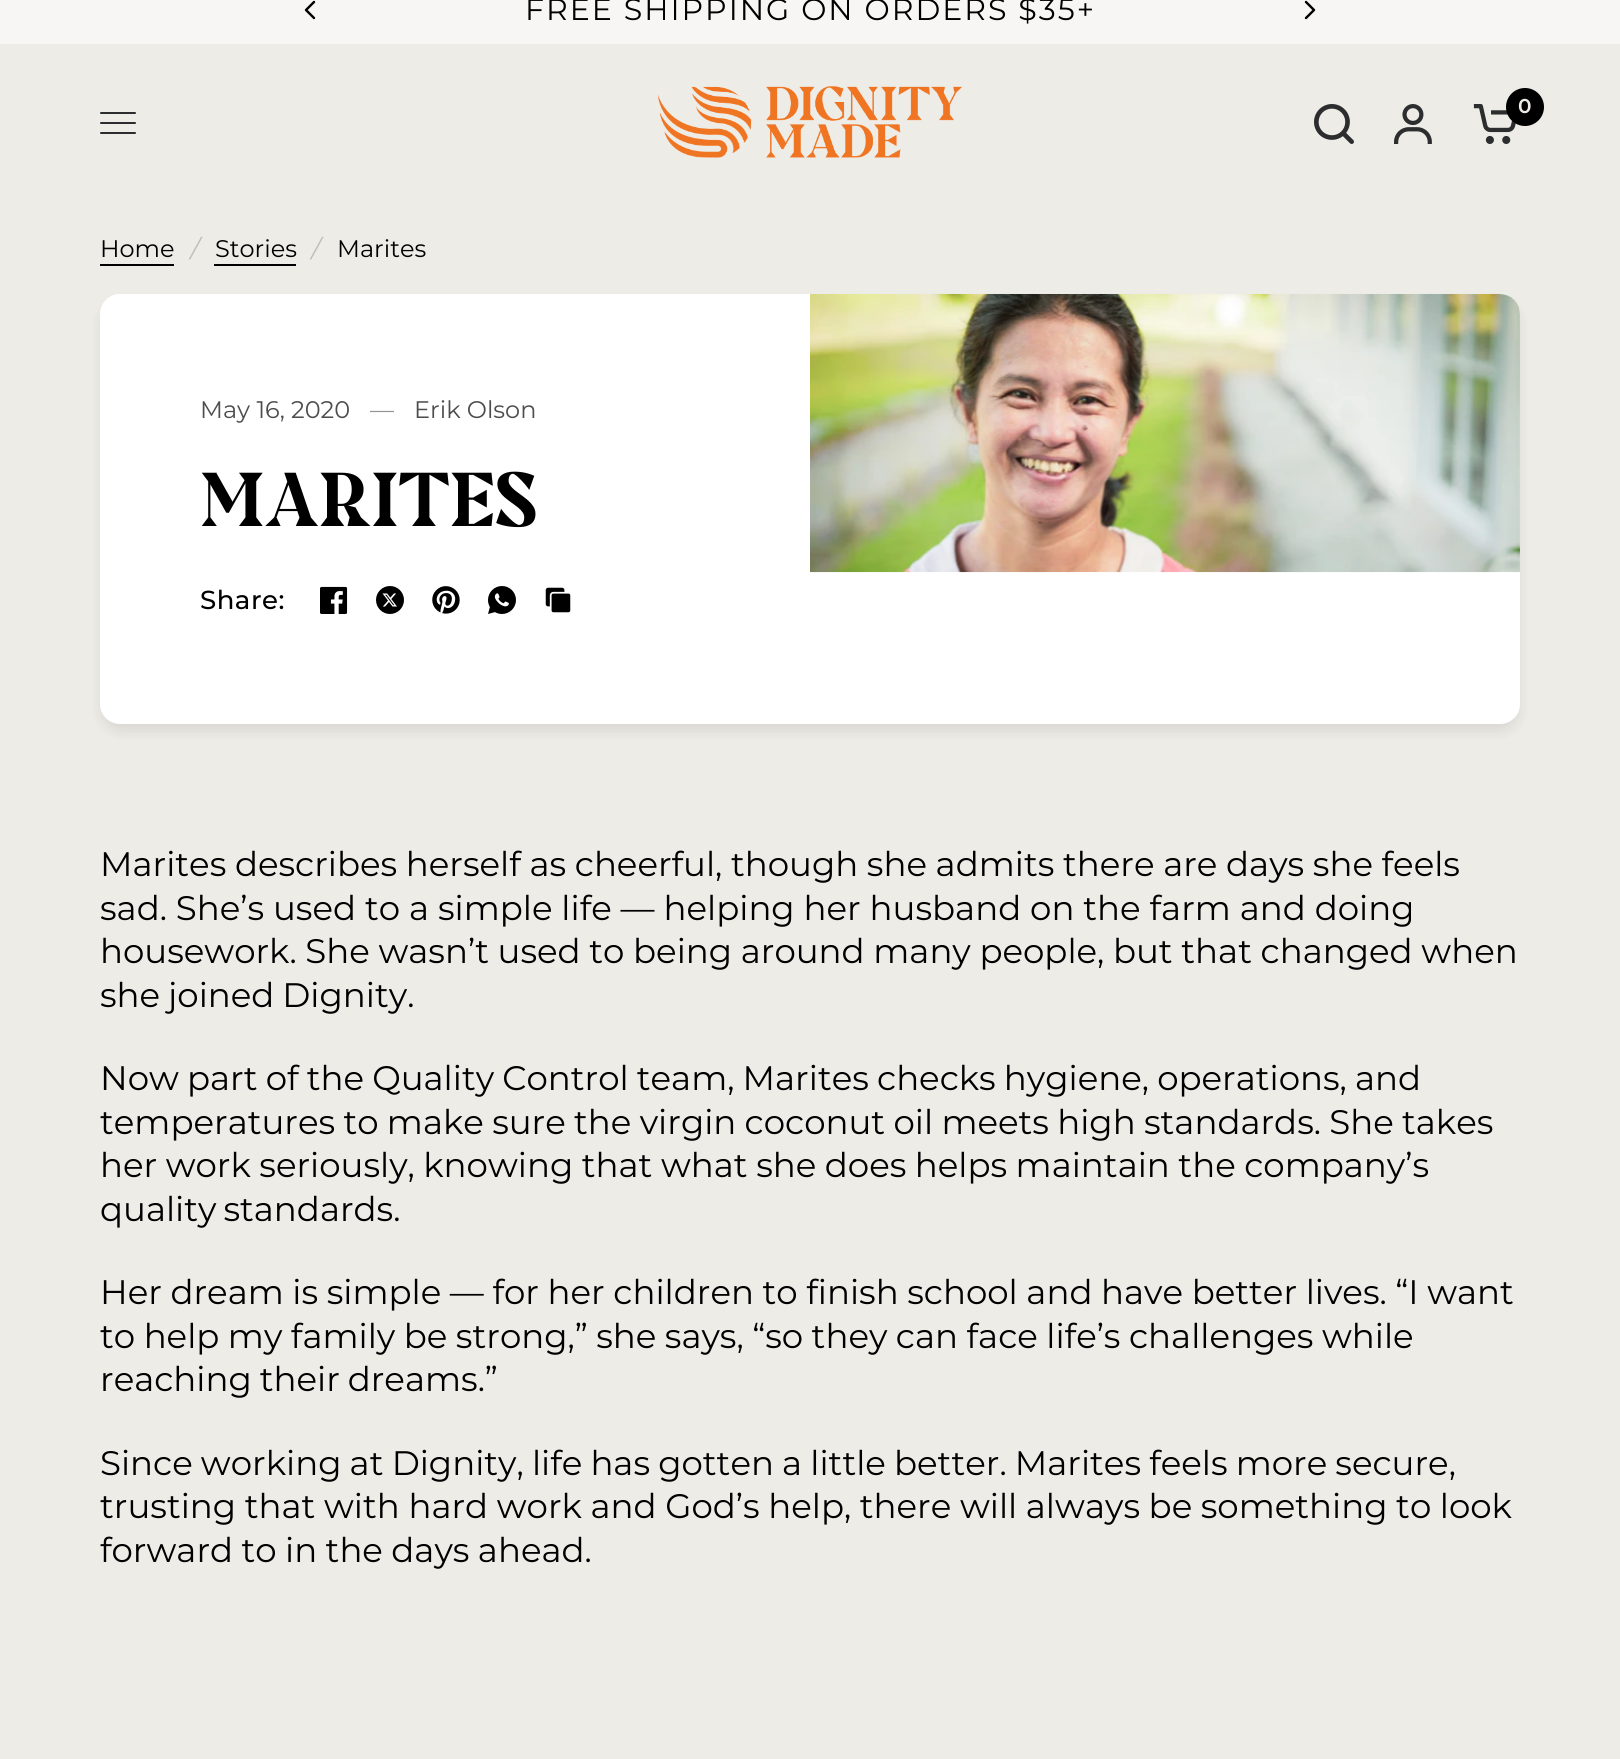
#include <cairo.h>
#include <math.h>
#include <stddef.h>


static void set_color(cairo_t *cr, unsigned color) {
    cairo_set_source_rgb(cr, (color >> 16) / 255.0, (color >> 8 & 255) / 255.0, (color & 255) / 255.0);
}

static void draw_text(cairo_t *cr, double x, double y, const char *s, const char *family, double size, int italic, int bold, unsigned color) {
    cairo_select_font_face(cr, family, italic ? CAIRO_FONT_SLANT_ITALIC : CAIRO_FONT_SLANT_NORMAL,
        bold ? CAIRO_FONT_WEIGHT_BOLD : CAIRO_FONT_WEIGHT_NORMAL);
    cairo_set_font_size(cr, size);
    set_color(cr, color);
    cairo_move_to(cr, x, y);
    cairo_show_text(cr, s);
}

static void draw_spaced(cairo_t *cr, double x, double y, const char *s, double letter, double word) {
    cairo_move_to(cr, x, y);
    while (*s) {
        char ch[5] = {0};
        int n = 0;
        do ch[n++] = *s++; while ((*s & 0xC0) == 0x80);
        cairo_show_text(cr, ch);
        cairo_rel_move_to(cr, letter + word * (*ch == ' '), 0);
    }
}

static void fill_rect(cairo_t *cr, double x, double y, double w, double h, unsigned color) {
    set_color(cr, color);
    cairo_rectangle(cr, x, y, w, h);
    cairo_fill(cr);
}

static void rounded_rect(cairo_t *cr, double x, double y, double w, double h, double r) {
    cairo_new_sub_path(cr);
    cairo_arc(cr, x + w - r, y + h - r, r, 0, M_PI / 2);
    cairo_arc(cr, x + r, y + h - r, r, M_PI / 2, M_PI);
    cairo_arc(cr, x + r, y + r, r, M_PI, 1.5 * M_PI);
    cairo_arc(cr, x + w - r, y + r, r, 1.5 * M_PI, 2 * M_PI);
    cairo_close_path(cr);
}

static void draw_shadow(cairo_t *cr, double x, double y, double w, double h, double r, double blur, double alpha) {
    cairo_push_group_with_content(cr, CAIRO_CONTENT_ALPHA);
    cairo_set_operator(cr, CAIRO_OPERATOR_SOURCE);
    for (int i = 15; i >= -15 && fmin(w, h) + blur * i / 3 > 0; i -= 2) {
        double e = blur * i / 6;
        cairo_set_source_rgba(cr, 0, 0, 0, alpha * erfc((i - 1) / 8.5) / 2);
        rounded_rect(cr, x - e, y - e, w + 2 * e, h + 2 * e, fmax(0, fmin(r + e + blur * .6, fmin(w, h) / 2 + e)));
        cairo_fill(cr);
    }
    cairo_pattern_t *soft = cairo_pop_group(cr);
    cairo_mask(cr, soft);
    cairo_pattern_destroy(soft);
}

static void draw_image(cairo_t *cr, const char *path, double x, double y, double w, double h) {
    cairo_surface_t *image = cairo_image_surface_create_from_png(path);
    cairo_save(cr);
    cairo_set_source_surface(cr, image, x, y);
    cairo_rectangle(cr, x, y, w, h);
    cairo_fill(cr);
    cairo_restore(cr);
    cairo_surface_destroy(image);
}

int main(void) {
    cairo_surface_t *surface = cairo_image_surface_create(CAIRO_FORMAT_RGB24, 1620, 1759);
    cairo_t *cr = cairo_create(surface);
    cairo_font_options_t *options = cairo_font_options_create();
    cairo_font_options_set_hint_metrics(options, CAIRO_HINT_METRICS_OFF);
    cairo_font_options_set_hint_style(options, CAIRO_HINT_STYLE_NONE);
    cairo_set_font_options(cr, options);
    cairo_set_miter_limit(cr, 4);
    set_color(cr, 0xEEECE7);
    cairo_paint(cr);
    fill_rect(cr, 0, 0, 1620, 44, 0xF7F6F4);
    cairo_new_path(cr);
    cairo_move_to(cr, 314, 2);
    cairo_line_to(cr, 306, 10);
    cairo_line_to(cr, 314, 18);
    set_color(cr, 0x000000);
    cairo_set_line_width(cr, 2.4);
    cairo_set_line_cap(cr, CAIRO_LINE_CAP_ROUND);
    cairo_set_line_join(cr, CAIRO_LINE_JOIN_ROUND);
    cairo_stroke(cr);
    cairo_select_font_face(cr, "Montserrat", CAIRO_FONT_SLANT_NORMAL, CAIRO_FONT_WEIGHT_NORMAL);
    cairo_set_font_size(cr, 30);
    draw_spaced(cr, 525, 20, "FREE SHIPPING ON ORDERS $35+", 2, 0);
    cairo_new_path(cr);
    cairo_move_to(cr, 1306, 2);
    cairo_line_to(cr, 1314, 10);
    cairo_line_to(cr, 1306, 18);
    cairo_stroke(cr);
    draw_image(cr, "assets/img1.png", 657, 86, 305, 72);
    draw_image(cr, "assets/img2.png", 1314, 104, 40, 40);
    draw_image(cr, "assets/img3.png", 1394, 104, 38, 40);
    draw_image(cr, "assets/img4.png", 1473, 104, 43, 40);
    cairo_arc(cr, 1525, 107, 19, 0, 2 * M_PI);
    cairo_fill(cr);
    draw_text(cr, 1518, 113, "0", "Montserrat SemiBold", 20, 0, 0, 0xEEECE7);
    set_color(cr, 0x2C2D2E);
    rounded_rect(cr, 100, 112, 36, 2, 1);
    cairo_fill(cr);
    rounded_rect(cr, 100, 122, 36, 2, 1);
    cairo_fill(cr);
    rounded_rect(cr, 100, 132, 36, 2, 1);
    cairo_fill(cr);
    draw_text(cr, 100, 257, "Home", "Montserrat", 24, 0, 0, 0x000000);
    fill_rect(cr, 100, 264, 74, 2, 0x000000);
    draw_text(cr, 191, 257, "/", "Montserrat", 24, 1, 0, 0xBEBDB9);
    draw_text(cr, 215, 257, "Stories", "Montserrat", 24, 0, 0, 0x000000);
    fill_rect(cr, 214, 264, 82, 2, 0x000000);
    draw_text(cr, 312, 257, "/", "Montserrat", 24, 1, 0, 0xBEBDB9);
    draw_text(cr, 337, 257, "Marites", "Montserrat", 24, 0, 0, 0x000000);
    set_color(cr, 0x000000);
    draw_shadow(cr, 100, 302, 1420, 430, 20, 6, 0.08);
    set_color(cr, 0xFFFFFF);
    rounded_rect(cr, 100, 294, 1420, 430, 20);
    cairo_fill(cr);
    draw_text(cr, 200, 418, "May 16, 2020", "Montserrat", 24, 0, 0, 0x4D4D4D);
    draw_text(cr, 370, 418, "—", "Montserrat", 24, 0, 0, 0x949494);
    draw_text(cr, 414, 418, "Erik Olson", "Montserrat", 24, 0, 0, 0x4D4D4D);
    draw_text(cr, 200, 526, "MARITES", "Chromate", 72, 0, 0, 0x000000);
    cairo_select_font_face(cr, "Montserrat Medium", CAIRO_FONT_SLANT_NORMAL, CAIRO_FONT_WEIGHT_NORMAL);
    cairo_set_font_size(cr, 26);
    draw_spaced(cr, 200, 609, "Share:", 0.5, 0);
    draw_image(cr, "assets/img5.png", 320, 586, 28, 28);
    draw_image(cr, "assets/img6.png", 376, 586, 28, 28);
    draw_image(cr, "assets/img7.png", 432, 586, 28, 28);
    draw_image(cr, "assets/img8.png", 488, 586, 28, 28);
    draw_image(cr, "assets/img9.png", 545, 587, 26, 26);
    draw_image(cr, "assets/img10.png", 810, 294, 710, 279);
    cairo_select_font_face(cr, "Montserrat", CAIRO_FONT_SLANT_NORMAL, CAIRO_FONT_WEIGHT_NORMAL);
    cairo_set_font_size(cr, 34);
    draw_spaced(cr, 100, 876, "Marites describes herself as cheerful, though she admits there are days she feels", 0, -0.25);
    draw_text(cr, 100, 920, "sad. She’s used to a simple life — helping her husband on the farm and doing", "Montserrat", 34, 0, 0, 0x000000);
    draw_spaced(cr, 100, 963, "housework. She wasn’t used to being around many people, but that changed when", 0, -0.25);
    draw_spaced(cr, 100, 1007, "she joined Dignity.", 0, -1);
    draw_spaced(cr, 100, 1090, "Now part of the Quality Control team, Marites checks hygiene, operations, and", 0, -0.75);
    draw_spaced(cr, 100, 1134, "temperatures to make sure the virgin coconut oil meets high standards. She takes", 0, -0.6);
    draw_spaced(cr, 100, 1177, "her work seriously, knowing that what she does helps maintain the company’s", 0, -0.4);
    draw_spaced(cr, 100, 1221, "quality standards.", 0, -2);
    draw_spaced(cr, 100, 1304, "Her dream is simple — for her children to finish school and have better lives. “I want", 0, -0.3);
    draw_spaced(cr, 100, 1348, "to help my family be strong,” she says, “so they can face life’s challenges while", 0, -0.4);
    draw_spaced(cr, 100, 1391, "reaching their dreams.”", 0, -1);
    draw_spaced(cr, 100, 1475, "Since working at Dignity, life has gotten a little better. Marites feels more secure,", 0, -0.75);
    draw_spaced(cr, 100, 1518, "trusting that with hard work and God’s help, there will always be something to look", 0, -0.3);
    draw_spaced(cr, 100, 1562, "forward to in the days ahead.", 0, -0.5);
    cairo_surface_write_to_png(surface, "output.png");
    cairo_font_options_destroy(options);
    cairo_destroy(cr);
    cairo_surface_destroy(surface);
    return 0;
}
